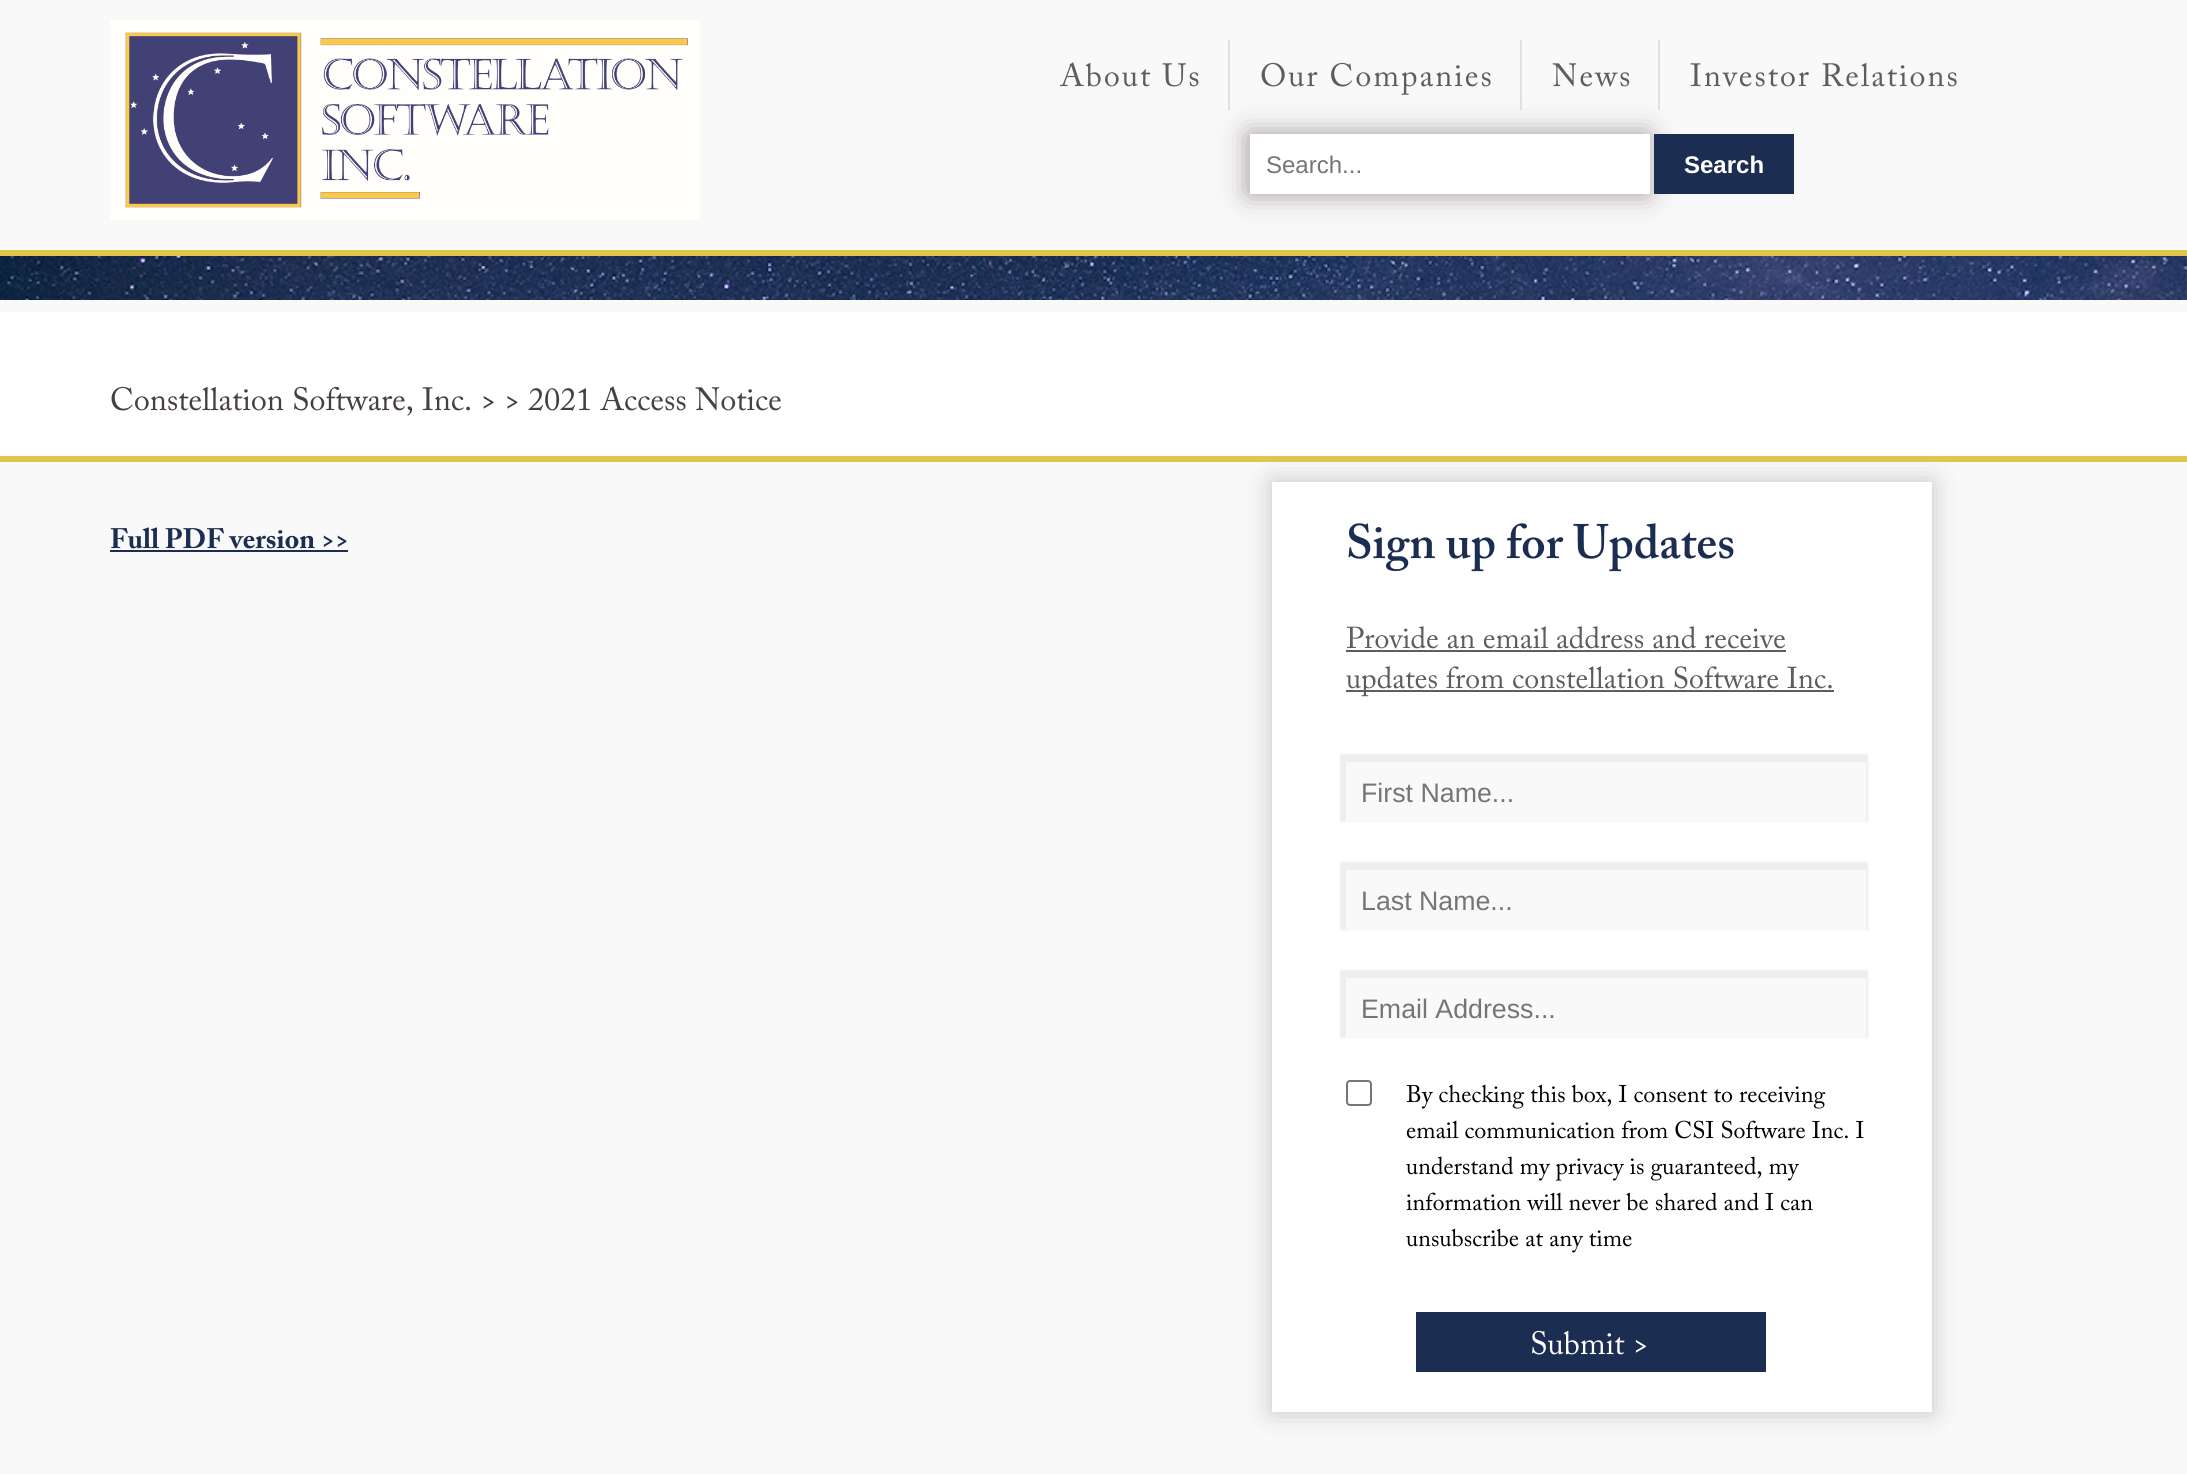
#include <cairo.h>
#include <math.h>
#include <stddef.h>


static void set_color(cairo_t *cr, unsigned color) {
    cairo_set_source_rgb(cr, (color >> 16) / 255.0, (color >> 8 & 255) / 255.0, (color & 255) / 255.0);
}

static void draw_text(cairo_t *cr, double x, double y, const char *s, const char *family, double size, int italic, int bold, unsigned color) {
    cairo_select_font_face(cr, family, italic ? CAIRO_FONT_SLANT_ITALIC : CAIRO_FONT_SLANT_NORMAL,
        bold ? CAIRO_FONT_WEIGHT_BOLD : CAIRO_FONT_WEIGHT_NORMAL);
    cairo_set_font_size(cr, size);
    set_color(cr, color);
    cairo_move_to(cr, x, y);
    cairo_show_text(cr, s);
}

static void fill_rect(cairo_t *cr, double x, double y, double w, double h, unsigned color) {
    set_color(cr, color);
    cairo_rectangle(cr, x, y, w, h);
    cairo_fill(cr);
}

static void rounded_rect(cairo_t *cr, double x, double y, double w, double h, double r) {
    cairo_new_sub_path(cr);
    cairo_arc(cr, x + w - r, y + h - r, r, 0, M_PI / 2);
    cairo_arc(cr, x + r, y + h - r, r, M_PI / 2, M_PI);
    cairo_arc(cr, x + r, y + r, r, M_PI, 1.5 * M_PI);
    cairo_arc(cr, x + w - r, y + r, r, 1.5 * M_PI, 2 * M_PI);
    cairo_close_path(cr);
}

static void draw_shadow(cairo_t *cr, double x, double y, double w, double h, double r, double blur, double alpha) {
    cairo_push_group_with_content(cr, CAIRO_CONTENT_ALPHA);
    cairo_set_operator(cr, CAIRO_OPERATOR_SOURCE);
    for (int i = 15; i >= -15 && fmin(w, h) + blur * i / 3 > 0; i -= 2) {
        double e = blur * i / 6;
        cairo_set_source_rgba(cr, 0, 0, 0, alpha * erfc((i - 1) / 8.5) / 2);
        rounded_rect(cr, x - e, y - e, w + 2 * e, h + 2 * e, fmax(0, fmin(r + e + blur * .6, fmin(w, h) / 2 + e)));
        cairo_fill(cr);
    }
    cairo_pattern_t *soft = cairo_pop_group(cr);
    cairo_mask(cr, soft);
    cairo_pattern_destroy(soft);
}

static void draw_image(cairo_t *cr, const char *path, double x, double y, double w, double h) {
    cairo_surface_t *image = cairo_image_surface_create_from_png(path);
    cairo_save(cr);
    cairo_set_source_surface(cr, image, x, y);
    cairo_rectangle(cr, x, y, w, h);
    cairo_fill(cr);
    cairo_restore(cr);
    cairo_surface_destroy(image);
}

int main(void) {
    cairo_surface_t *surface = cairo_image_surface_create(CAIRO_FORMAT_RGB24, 2187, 1474);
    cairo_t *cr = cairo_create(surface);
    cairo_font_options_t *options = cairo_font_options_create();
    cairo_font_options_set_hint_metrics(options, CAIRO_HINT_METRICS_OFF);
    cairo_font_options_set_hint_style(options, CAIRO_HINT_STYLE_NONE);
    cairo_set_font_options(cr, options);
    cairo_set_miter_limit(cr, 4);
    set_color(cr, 0xF9F9F9);
    cairo_paint(cr);
    fill_rect(cr, 0, 250, 2187, 6, 0xE0C64B);
    draw_image(cr, "assets/img1.png", 110, 20, 590, 200);
    fill_rect(cr, 1228, 40, 2, 70, 0xE0E0E0);
    draw_image(cr, "assets/img2.png", 1059, 62, 140, 25);
    fill_rect(cr, 1520, 40, 2, 70, 0xE0E0E0);
    draw_image(cr, "assets/img3.png", 1261, 62, 230, 33);
    fill_rect(cr, 1658, 40, 2, 70, 0xE0E0E0);
    draw_image(cr, "assets/img4.png", 1552, 63, 78, 24);
    draw_image(cr, "assets/img5.png", 1690, 62, 267, 25);
    set_color(cr, 0xA59B9B);
    draw_shadow(cr, 1248, 134, 400, 60, 0, 14, 1);
    fill_rect(cr, 1250, 134, 400, 60, 0xFFFFFF);
    draw_text(cr, 1266, 173, "Search...", "Liberation Sans", 24, 0, 0, 0x757575);
    fill_rect(cr, 1654, 134, 140, 60, 0x1B2D50);
    draw_text(cr, 1684, 173, "Search", "Liberation Sans", 24, 0, 1, 0xFFFFFF);
    draw_image(cr, "assets/img6.png", 0, 256, 2187, 44);
    fill_rect(cr, 0, 312, 2187, 144, 0xFFFFFF);
    fill_rect(cr, 0, 456, 2187, 6, 0xE0C64B);
    draw_image(cr, "assets/img7.png", 111, 386, 383, 30);
    draw_image(cr, "assets/img8.png", 507, 386, 274, 25);
    draw_image(cr, "assets/img9.png", 110, 527, 237, 22);
    fill_rect(cr, 110, 550, 238, 2, 0x1B2D50);
    set_color(cr, 0xC7C2C2);
    draw_shadow(cr, 1272, 482, 660, 930, 0, 13, 1);
    fill_rect(cr, 1272, 482, 660, 930, 0xFFFFFF);
    draw_image(cr, "assets/img10.png", 1348, 523, 386, 49);
    draw_image(cr, "assets/img11.png", 1346, 626, 439, 23);
    fill_rect(cr, 1346, 650, 440, 2, 0x615C5C);
    fill_rect(cr, 1346, 690, 488, 2, 0x615C5C);
    draw_image(cr, "assets/img12.png", 1346, 666, 486, 31);
    set_color(cr, 0xEEEEEE);
    draw_shadow(cr, 1340, 754, 528, 68, 0, 1, 1);
    fill_rect(cr, 1346, 762, 520, 60, 0xF9F9F9);
    draw_text(cr, 1361, 802, "First Name...", "Liberation Sans", 26.75, 0, 0, 0x757575);
    set_color(cr, 0xEEEEEE);
    draw_shadow(cr, 1340, 862, 528, 68, 0, 1, 1);
    fill_rect(cr, 1346, 870, 520, 60, 0xF9F9F9);
    draw_text(cr, 1361, 910, "Last Name...", "Liberation Sans", 26.75, 0, 0, 0x757575);
    set_color(cr, 0xEEEEEE);
    draw_shadow(cr, 1340, 970, 528, 68, 0, 1, 1);
    fill_rect(cr, 1346, 978, 520, 60, 0xF9F9F9);
    draw_text(cr, 1361, 1018, "Email Address...", "Liberation Sans", 26.75, 0, 0, 0x757575);
    rounded_rect(cr, 1347, 1081, 24, 24, 3);
    set_color(cr, 0x767676);
    cairo_stroke(cr);
    draw_image(cr, "assets/img13.png", 1406, 1084, 420, 25);
    draw_image(cr, "assets/img14.png", 1406, 1120, 458, 19);
    draw_image(cr, "assets/img15.png", 1406, 1156, 393, 25);
    draw_image(cr, "assets/img16.png", 1406, 1192, 407, 19);
    draw_image(cr, "assets/img17.png", 1406, 1228, 226, 25);
    fill_rect(cr, 1416, 1312, 350, 60, 0x1B2D50);
    draw_image(cr, "assets/img18.png", 1532, 1330, 114, 25);
    cairo_surface_write_to_png(surface, "output.png");
    cairo_font_options_destroy(options);
    cairo_destroy(cr);
    cairo_surface_destroy(surface);
    return 0;
}
